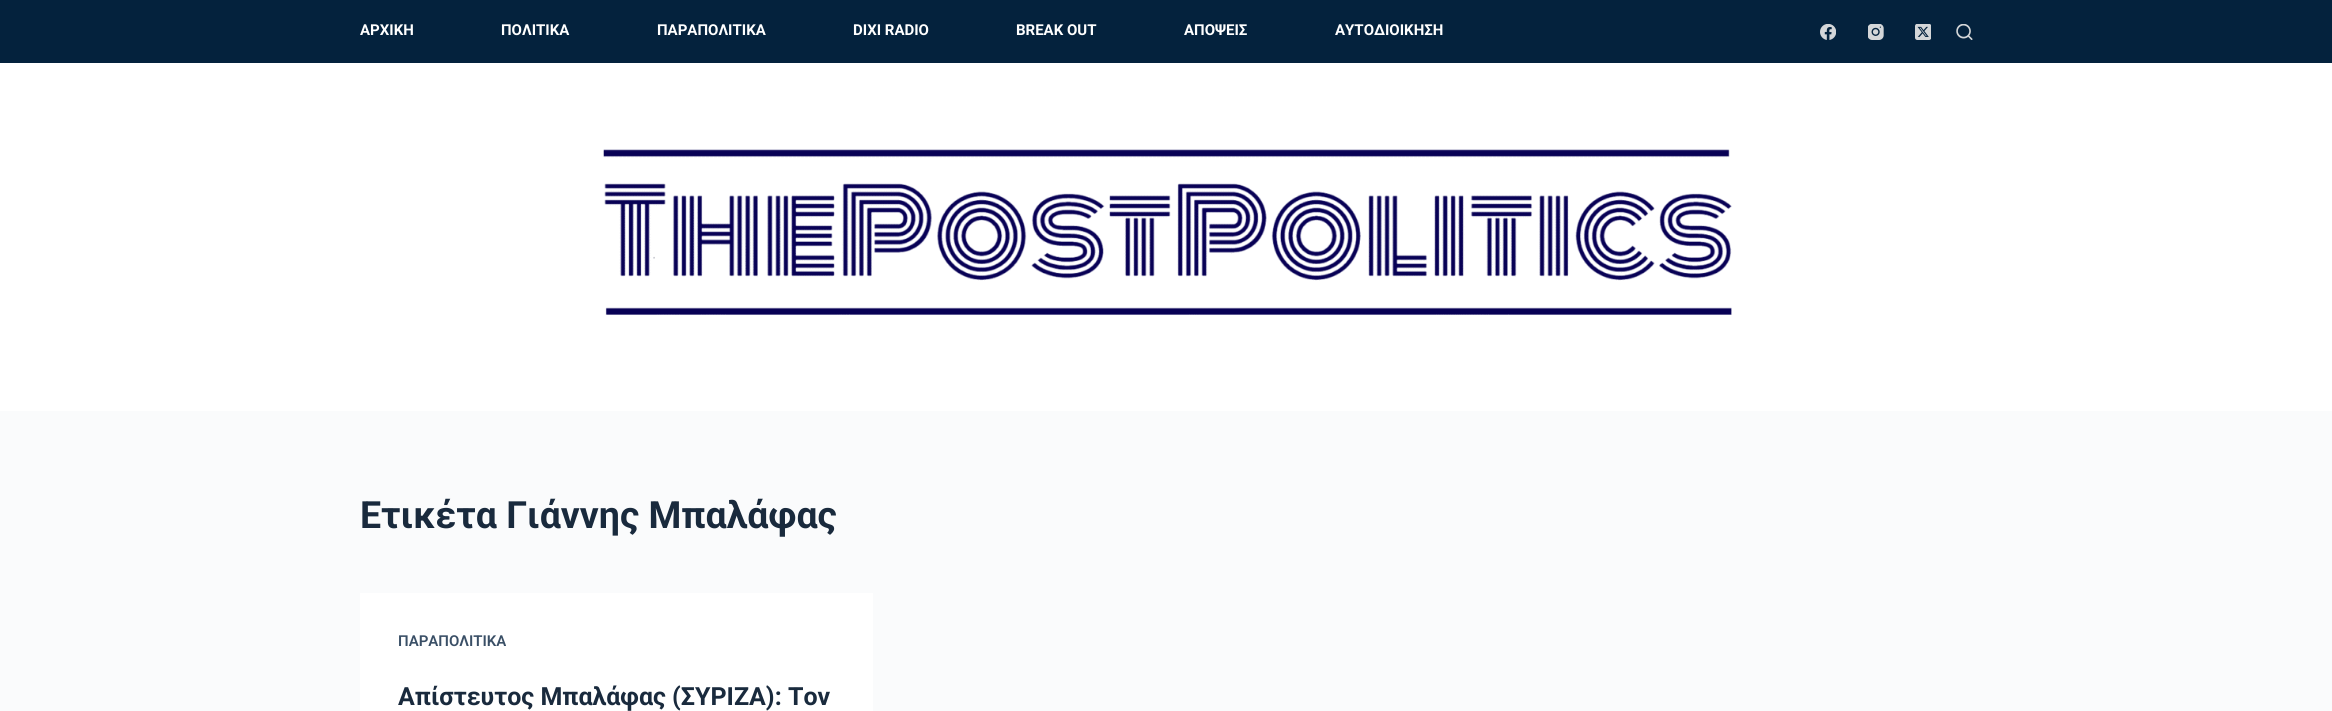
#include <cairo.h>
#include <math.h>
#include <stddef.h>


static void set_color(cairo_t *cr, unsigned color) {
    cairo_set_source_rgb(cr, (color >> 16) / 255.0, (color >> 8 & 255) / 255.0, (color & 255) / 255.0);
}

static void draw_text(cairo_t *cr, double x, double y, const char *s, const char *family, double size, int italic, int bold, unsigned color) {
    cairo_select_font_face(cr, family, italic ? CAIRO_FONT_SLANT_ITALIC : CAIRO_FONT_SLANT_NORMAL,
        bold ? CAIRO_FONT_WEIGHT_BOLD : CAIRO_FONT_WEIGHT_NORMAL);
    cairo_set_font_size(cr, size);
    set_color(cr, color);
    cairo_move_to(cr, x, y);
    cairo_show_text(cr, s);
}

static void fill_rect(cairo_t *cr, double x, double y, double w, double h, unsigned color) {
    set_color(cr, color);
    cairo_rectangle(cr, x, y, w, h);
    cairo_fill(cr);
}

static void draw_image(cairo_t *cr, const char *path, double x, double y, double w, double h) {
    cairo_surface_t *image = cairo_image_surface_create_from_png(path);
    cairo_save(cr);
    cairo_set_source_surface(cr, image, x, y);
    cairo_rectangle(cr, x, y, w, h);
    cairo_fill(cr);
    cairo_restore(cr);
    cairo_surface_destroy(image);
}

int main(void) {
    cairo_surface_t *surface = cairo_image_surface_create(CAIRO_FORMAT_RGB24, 2332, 711);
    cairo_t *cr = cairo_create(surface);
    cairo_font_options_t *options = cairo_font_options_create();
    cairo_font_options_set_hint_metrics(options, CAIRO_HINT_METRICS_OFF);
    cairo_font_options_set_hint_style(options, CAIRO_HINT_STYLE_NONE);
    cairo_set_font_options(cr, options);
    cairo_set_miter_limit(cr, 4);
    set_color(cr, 0xFAFBFC);
    cairo_paint(cr);
    fill_rect(cr, 0, 0, 2332, 63, 0x04223D);
    draw_text(cr, 360, 35, "ΑΡΧΙΚΗ", "Roboto", 15, 0, 1, 0xFFFFFF);
    draw_text(cr, 501, 35, "ΠΟΛΙΤΙΚΑ", "Roboto", 15, 0, 1, 0xFFFFFF);
    draw_text(cr, 657, 35, "ΠΑΡΑΠΟΛΙΤΙΚΑ", "Roboto", 15, 0, 1, 0xFFFFFF);
    draw_text(cr, 853, 35, "DIXI RADIO", "Roboto", 15, 0, 1, 0xFFFFFF);
    draw_text(cr, 1016, 35, "BREAK OUT", "Roboto", 15, 0, 1, 0xFFFFFF);
    draw_text(cr, 1184, 35, "ΑΠΟΨΕΙΣ", "Roboto", 15, 0, 1, 0xFFFFFF);
    draw_text(cr, 1335, 35, "ΑΥΤΟΔΙΟΙΚΗΣΗ", "Roboto", 15, 0, 1, 0xFFFFFF);
    draw_image(cr, "assets/img1.png", 1820, 24, 16, 16);
    draw_image(cr, "assets/img2.png", 1868, 24, 16, 16);
    draw_image(cr, "assets/img3.png", 1915, 24, 16, 16);
    draw_image(cr, "assets/img4.png", 1956, 24, 17, 16);
    fill_rect(cr, 0, 63, 2332, 348, 0xFFFFFF);
    draw_image(cr, "assets/img5.png", 603, 149, 1129, 166);
    draw_text(cr, 360, 528, "Ετικέτα Γιάννης Μπαλάφας", "Roboto", 37.5, 0, 1, 0x192A3D);
    fill_rect(cr, 360, 593, 513, 118, 0xFFFFFF);
    draw_text(cr, 398, 646, "ΠΑΡΑΠΟΛΙΤΙΚΑ", "Roboto SemiBold", 15, 0, 0, 0x3A4F66);
    draw_text(cr, 398, 705, "Απίστευτος Μπαλάφας (ΣΥΡΙΖΑ): Τον", "Roboto", 25, 0, 1, 0x192A3D);
    cairo_surface_write_to_png(surface, "output.png");
    cairo_font_options_destroy(options);
    cairo_destroy(cr);
    cairo_surface_destroy(surface);
    return 0;
}
